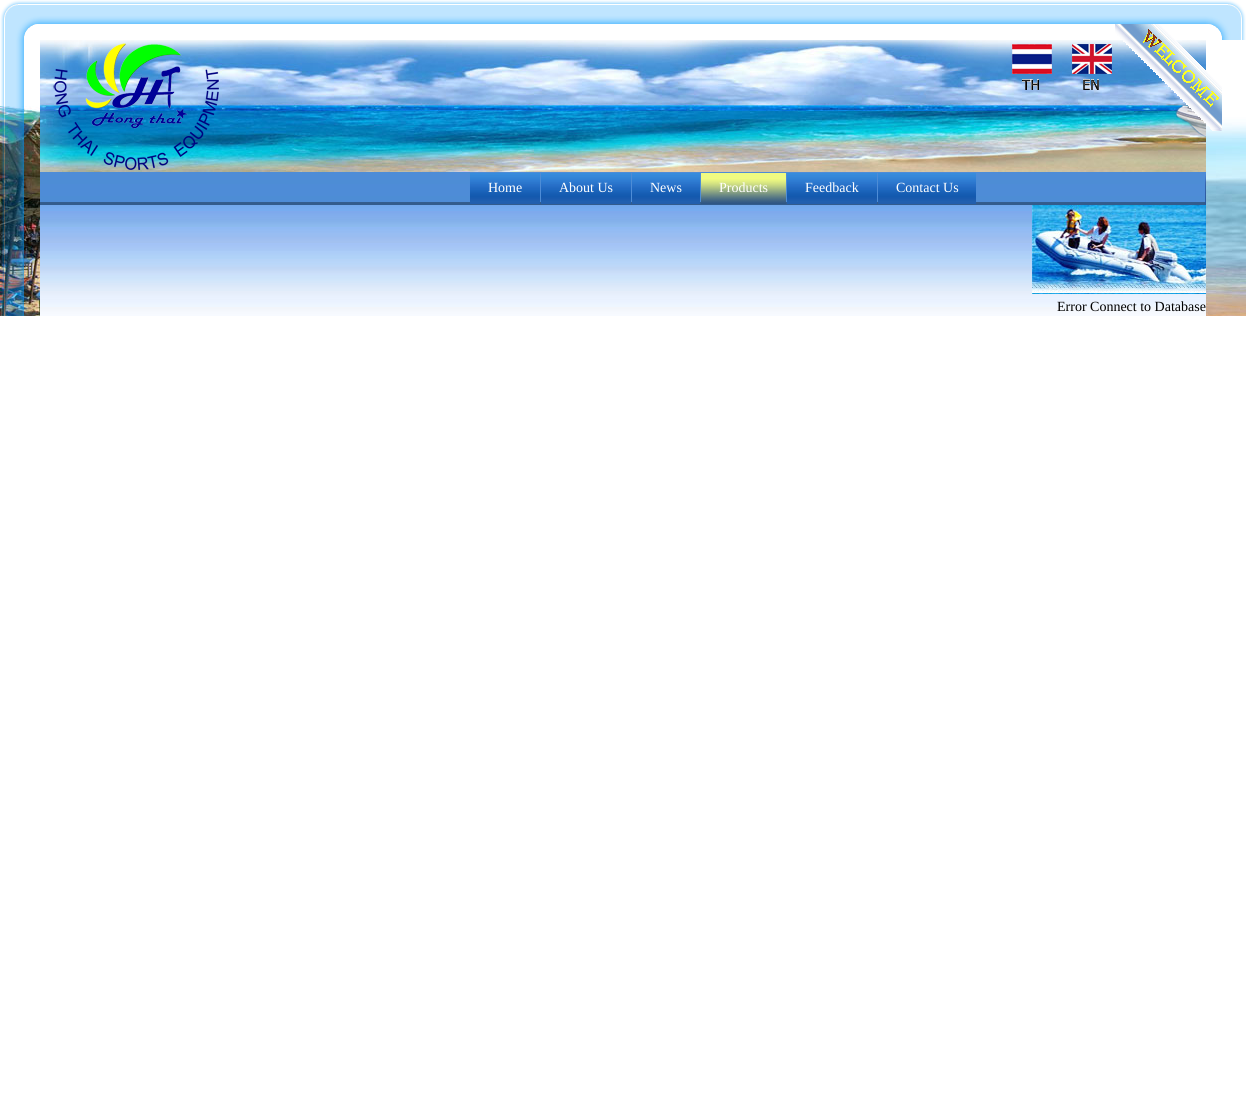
#include <cairo.h>
#include <math.h>
#include <stddef.h>


static void set_color(cairo_t *cr, unsigned color) {
    cairo_set_source_rgb(cr, (color >> 16) / 255.0, (color >> 8 & 255) / 255.0, (color & 255) / 255.0);
}

static void draw_text(cairo_t *cr, double x, double y, const char *s, const char *family, double size, int italic, int bold, unsigned color) {
    cairo_select_font_face(cr, family, italic ? CAIRO_FONT_SLANT_ITALIC : CAIRO_FONT_SLANT_NORMAL,
        bold ? CAIRO_FONT_WEIGHT_BOLD : CAIRO_FONT_WEIGHT_NORMAL);
    cairo_set_font_size(cr, size);
    set_color(cr, color);
    cairo_move_to(cr, x, y);
    cairo_show_text(cr, s);
}

static void draw_image(cairo_t *cr, const char *path, double x, double y, double w, double h) {
    cairo_surface_t *image = cairo_image_surface_create_from_png(path);
    cairo_save(cr);
    cairo_set_source_surface(cr, image, x, y);
    cairo_rectangle(cr, x, y, w, h);
    cairo_fill(cr);
    cairo_restore(cr);
    cairo_surface_destroy(image);
}

int main(void) {
    cairo_surface_t *surface = cairo_image_surface_create(CAIRO_FORMAT_RGB24, 1246, 1112);
    cairo_t *cr = cairo_create(surface);
    cairo_font_options_t *options = cairo_font_options_create();
    cairo_font_options_set_hint_metrics(options, CAIRO_HINT_METRICS_OFF);
    cairo_font_options_set_hint_style(options, CAIRO_HINT_STYLE_NONE);
    cairo_set_font_options(cr, options);
    cairo_set_miter_limit(cr, 4);
    set_color(cr, 0xFFFFFF);
    cairo_paint(cr);
    draw_image(cr, "assets/img1.png", 0, 106, 1246, 210);
    draw_image(cr, "assets/img10.png", 40, 40, 1166, 132);
    draw_image(cr, "assets/img2.png", 53, 43, 166, 127);
    draw_image(cr, "assets/img3.png", 1012, 44, 40, 46);
    draw_image(cr, "assets/img4.png", 1072, 44, 40, 46);
    draw_image(cr, "assets/img8.png", 1206, 0, 40, 40);
    draw_image(cr, "assets/img11.png", 1175, 104, 31, 36);
    draw_image(cr, "assets/img5.png", 1115, 24, 107, 107);
    draw_image(cr, "assets/img6.png", 0, 0, 40, 40);
    draw_image(cr, "assets/img7.png", 40, 0, 1166, 24);
    draw_image(cr, "assets/img9.png", 0, 40, 24, 276);
    draw_image(cr, "assets/img12.png", 40, 172, 1166, 33);
    draw_image(cr, "assets/img13.png", 1205, 174, 1, 31);
    draw_image(cr, "assets/img14.png", 470, 173, 70, 31);
    draw_text(cr, 488, 192, "Home", "Liberation Serif", 14, 0, 0, 0xFFFFFF);
    draw_image(cr, "assets/img15.png", 541, 173, 90, 31);
    draw_text(cr, 559, 192, "About Us", "Liberation Serif", 14, 0, 0, 0xFFFFFF);
    draw_image(cr, "assets/img16.png", 632, 173, 68, 31);
    draw_text(cr, 650, 192, "News", "Liberation Serif", 14, 0, 0, 0xFFFFFF);
    draw_image(cr, "assets/img17.png", 701, 173, 85, 31);
    draw_text(cr, 719, 192, "Products", "Liberation Serif", 14, 0, 0, 0xFFFFFF);
    draw_image(cr, "assets/img15.png", 787, 173, 90, 31);
    draw_text(cr, 805, 192, "Feedback", "Liberation Serif", 14, 0, 0, 0xFFFFFF);
    draw_image(cr, "assets/img18.png", 878, 173, 98, 31);
    draw_text(cr, 896, 192, "Contact Us", "Liberation Serif", 14, 0, 0, 0xFFFFFF);
    draw_image(cr, "assets/img19.png", 40, 205, 1166, 111);
    draw_image(cr, "assets/img20.png", 1032, 205, 174, 89);
    draw_text(cr, 1057, 311, "Error Connect to Database", "Liberation Serif", 14, 0, 0, 0x000000);
    cairo_surface_write_to_png(surface, "output.png");
    cairo_font_options_destroy(options);
    cairo_destroy(cr);
    cairo_surface_destroy(surface);
    return 0;
}
